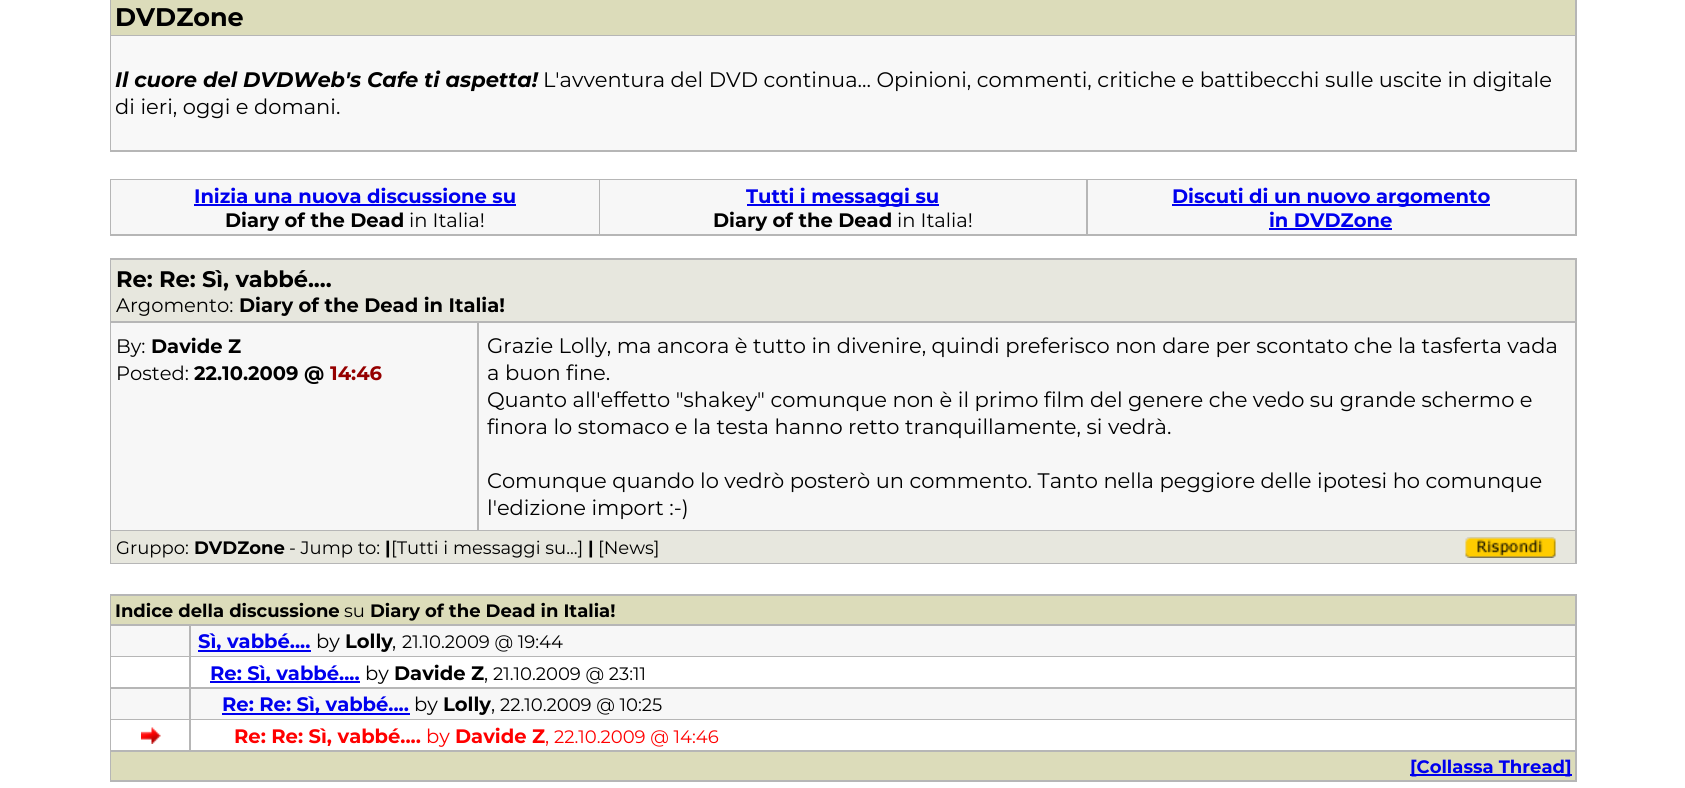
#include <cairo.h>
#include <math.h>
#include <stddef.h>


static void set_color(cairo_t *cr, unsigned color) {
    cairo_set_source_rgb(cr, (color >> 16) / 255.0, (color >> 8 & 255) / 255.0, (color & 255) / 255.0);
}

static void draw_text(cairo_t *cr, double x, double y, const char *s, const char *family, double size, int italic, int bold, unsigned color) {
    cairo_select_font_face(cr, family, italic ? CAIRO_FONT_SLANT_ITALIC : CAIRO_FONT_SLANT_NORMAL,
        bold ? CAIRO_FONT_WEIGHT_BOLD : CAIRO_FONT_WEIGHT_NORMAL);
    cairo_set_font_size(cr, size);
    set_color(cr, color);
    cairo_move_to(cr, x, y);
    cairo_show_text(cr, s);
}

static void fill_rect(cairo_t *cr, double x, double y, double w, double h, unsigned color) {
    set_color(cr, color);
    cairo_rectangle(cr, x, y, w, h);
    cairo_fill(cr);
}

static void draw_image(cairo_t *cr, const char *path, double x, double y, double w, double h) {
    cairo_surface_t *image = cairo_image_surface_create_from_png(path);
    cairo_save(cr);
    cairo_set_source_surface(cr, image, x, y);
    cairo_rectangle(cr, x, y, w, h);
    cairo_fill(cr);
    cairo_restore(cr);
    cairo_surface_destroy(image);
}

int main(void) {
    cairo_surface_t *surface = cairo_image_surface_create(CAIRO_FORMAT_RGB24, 1685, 788);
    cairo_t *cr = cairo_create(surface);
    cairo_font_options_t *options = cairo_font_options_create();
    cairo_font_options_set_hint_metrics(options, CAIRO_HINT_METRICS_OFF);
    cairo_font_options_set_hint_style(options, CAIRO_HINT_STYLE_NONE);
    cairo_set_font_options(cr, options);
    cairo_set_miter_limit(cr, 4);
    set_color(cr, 0xFFFFFF);
    cairo_paint(cr);
    fill_rect(cr, 110, 0, 1467, 152, 0xB6B6B6);
    fill_rect(cr, 111, 0, 1464, 35, 0xDCDCBA);
    draw_text(cr, 115, 26, "DVDZone", "Montserrat", 25.5, 0, 1, 0x000000);
    fill_rect(cr, 111, 36, 1464, 114, 0xF8F8F8);
    draw_text(cr, 115, 87, "Il cuore del DVDWeb's Cafe ti aspetta!", "Montserrat Thin", 21, 1, 0, 0x000000);
    draw_text(cr, 543, 87, "L'avventura del DVD continua... Opinioni, commenti, critiche e battibecchi sulle uscite in digitale", "Montserrat", 21, 0, 0, 0x000000);
    draw_text(cr, 115, 114, "di ieri, oggi e domani.", "Montserrat", 21, 0, 0, 0x000000);
    fill_rect(cr, 110, 179, 1467, 57, 0xB6B6B6);
    fill_rect(cr, 111, 180, 488, 54, 0xF7F7F7);
    draw_text(cr, 194, 203, "Inizia una nuova discussione su", "Montserrat", 19.5, 0, 1, 0x0000EE);
    fill_rect(cr, 194, 204, 322, 2, 0x0000EE);
    draw_text(cr, 225, 227, "Diary of the Dead", "Montserrat", 19.5, 0, 1, 0x000000);
    draw_text(cr, 409, 227, "in Italia!", "Montserrat", 19.5, 0, 0, 0x000000);
    fill_rect(cr, 600, 180, 486, 54, 0xF7F7F7);
    fill_rect(cr, 747, 204, 192, 2, 0x0000EE);
    draw_text(cr, 746, 203, "Tutti i messaggi su", "Montserrat", 19.5, 0, 1, 0x0000EE);
    draw_text(cr, 713, 227, "Diary of the Dead", "Montserrat", 19.5, 0, 1, 0x000000);
    draw_text(cr, 897, 227, "in Italia!", "Montserrat", 19.5, 0, 0, 0x000000);
    fill_rect(cr, 1088, 180, 487, 54, 0xF7F7F7);
    fill_rect(cr, 1172, 204, 318, 2, 0x0000EE);
    draw_text(cr, 1172, 203, "Discuti di un nuovo argomento", "Montserrat", 19.5, 0, 1, 0x0000EE);
    draw_text(cr, 1269, 227, "in DVDZone", "Montserrat", 19.5, 0, 1, 0x0000EE);
    fill_rect(cr, 1269, 228, 123, 2, 0x0000EE);
    fill_rect(cr, 110, 258, 1467, 306, 0xB6B6B6);
    fill_rect(cr, 111, 260, 1464, 61, 0xE7E7DE);
    draw_text(cr, 116, 287, "Re: Re: Sì, vabbé....", "Montserrat", 22.5, 0, 1, 0x000000);
    draw_text(cr, 116, 312, "Argomento:", "Montserrat", 19.5, 0, 0, 0x000000);
    draw_text(cr, 239, 312, "Diary of the Dead in Italia!", "Montserrat", 19.5, 0, 1, 0x000000);
    fill_rect(cr, 111, 323, 366, 207, 0xF7F7F7);
    draw_text(cr, 116, 353, "By:", "Montserrat", 19.5, 0, 0, 0x000000);
    draw_text(cr, 151, 353, "Davide Z", "Montserrat", 19.5, 0, 1, 0x000000);
    draw_text(cr, 116, 380, "Posted:", "Montserrat", 19.5, 0, 0, 0x000000);
    draw_text(cr, 194, 380, "22.10.2009 @", "Montserrat", 19.5, 0, 1, 0x000000);
    draw_text(cr, 330, 380, "14:46", "Montserrat", 19.5, 0, 1, 0x950000);
    fill_rect(cr, 479, 323, 1096, 207, 0xF7F7F7);
    draw_text(cr, 487, 353, "Grazie Lolly, ma ancora è tutto in divenire, quindi preferisco non dare per scontato che la tasferta vada", "Montserrat", 21, 0, 0, 0x000000);
    draw_text(cr, 487, 380, "a buon fine.", "Montserrat", 21, 0, 0, 0x000000);
    draw_text(cr, 487, 407, "Quanto all'effetto \"shakey\" comunque non è il primo film del genere che vedo su grande schermo e", "Montserrat", 21, 0, 0, 0x000000);
    draw_text(cr, 487, 434, "finora lo stomaco e la testa hanno retto tranquillamente, si vedrà.", "Montserrat", 21, 0, 0, 0x000000);
    draw_text(cr, 487, 488, "Comunque quando lo vedrò posterò un commento. Tanto nella peggiore delle ipotesi ho comunque", "Montserrat", 21, 0, 0, 0x000000);
    draw_text(cr, 487, 515, "l'edizione import :-)", "Montserrat", 21, 0, 0, 0x000000);
    fill_rect(cr, 111, 531, 1464, 32, 0xE7E7DE);
    draw_text(cr, 116, 554, "Gruppo:", "Montserrat", 18, 0, 0, 0x000000);
    draw_text(cr, 194, 554, "DVDZone", "Montserrat", 18, 0, 1, 0x000000);
    draw_text(cr, 289, 554, "- Jump to:", "Montserrat", 18, 0, 0, 0x000000);
    draw_text(cr, 385, 554, "|", "Montserrat", 18, 0, 1, 0x000000);
    draw_text(cr, 391, 554, "[Tutti i messaggi su...]", "Montserrat", 18, 0, 0, 0x000000);
    draw_text(cr, 588, 554, "|", "Montserrat", 18, 0, 1, 0x000000);
    draw_text(cr, 598, 554, "[News]", "Montserrat", 18, 0, 0, 0x000000);
    draw_image(cr, "assets/img1.png", 1465, 537, 91, 21);
    fill_rect(cr, 110, 594, 1467, 188, 0xB6B6B6);
    fill_rect(cr, 111, 596, 1464, 28, 0xDCDCBA);
    draw_text(cr, 115, 617, "Indice della discussione", "Montserrat", 18, 0, 1, 0x000000);
    draw_text(cr, 344, 617, "su", "Montserrat", 18, 0, 0, 0x000000);
    draw_text(cr, 370, 617, "Diary of the Dead in Italia!", "Montserrat", 18, 0, 1, 0x000000);
    fill_rect(cr, 111, 626, 78, 30, 0xF7F7F7);
    fill_rect(cr, 191, 626, 1384, 30, 0xF7F7F7);
    fill_rect(cr, 198, 650, 113, 2, 0x0000EE);
    draw_text(cr, 198, 648, "Sì, vabbé....", "Montserrat", 19.5, 0, 1, 0x0000EE);
    draw_text(cr, 316, 648, "by", "Montserrat", 19.5, 0, 0, 0x000000);
    draw_text(cr, 345, 648, "Lolly", "Montserrat", 19.5, 0, 1, 0x000000);
    draw_text(cr, 392, 648, ",", "Montserrat", 19.5, 0, 0, 0x000000);
    draw_text(cr, 402, 648, "21.10.2009 @ 19:44", "Montserrat", 18, 0, 0, 0x000000);
    fill_rect(cr, 111, 657, 78, 30, 0xFFFFFF);
    fill_rect(cr, 191, 657, 1384, 30, 0xFFFFFF);
    fill_rect(cr, 210, 681, 150, 2, 0x0000EE);
    draw_text(cr, 210, 680, "Re: Sì, vabbé....", "Montserrat", 19.5, 0, 1, 0x0000EE);
    draw_text(cr, 365, 680, "by", "Montserrat", 19.5, 0, 0, 0x000000);
    draw_text(cr, 394, 680, "Davide Z", "Montserrat", 19.5, 0, 1, 0x000000);
    draw_text(cr, 484, 680, ",", "Montserrat", 19.5, 0, 0, 0x000000);
    draw_text(cr, 493, 680, "21.10.2009 @ 23:11", "Montserrat", 18, 0, 0, 0x000000);
    fill_rect(cr, 111, 689, 78, 30, 0xF7F7F7);
    fill_rect(cr, 191, 689, 1384, 30, 0xF7F7F7);
    fill_rect(cr, 222, 713, 188, 2, 0x0000EE);
    draw_text(cr, 222, 711, "Re: Re: Sì, vabbé....", "Montserrat", 19.5, 0, 1, 0x0000EE);
    draw_text(cr, 414, 711, "by", "Montserrat", 19.5, 0, 0, 0x000000);
    draw_text(cr, 443, 711, "Lolly", "Montserrat", 19.5, 0, 1, 0x000000);
    draw_text(cr, 491, 711, ",", "Montserrat", 19.5, 0, 0, 0x000000);
    draw_text(cr, 500, 711, "22.10.2009 @ 10:25", "Montserrat", 18, 0, 0, 0x000000);
    fill_rect(cr, 111, 720, 78, 30, 0xFFFFFF);
    draw_image(cr, "assets/img2.png", 141, 727, 20, 17);
    fill_rect(cr, 191, 720, 1384, 30, 0xFFFFFF);
    draw_text(cr, 234, 743, "Re: Re: Sì, vabbé....", "Montserrat", 19.5, 0, 1, 0xFF0000);
    draw_text(cr, 426, 743, "by", "Montserrat", 19.5, 0, 0, 0xFF0000);
    draw_text(cr, 455, 743, "Davide Z", "Montserrat", 19.5, 0, 1, 0xFF0000);
    draw_text(cr, 545, 743, ",", "Montserrat", 19.5, 0, 0, 0xFF0000);
    draw_text(cr, 554, 743, "22.10.2009 @ 14:46", "Montserrat", 18, 0, 0, 0xFF0000);
    fill_rect(cr, 111, 752, 1464, 28, 0xDCDCBA);
    fill_rect(cr, 1410, 774, 162, 2, 0x0000EE);
    draw_text(cr, 1410, 773, "[Collassa Thread]", "Montserrat", 18, 0, 1, 0x0000EE);
    cairo_surface_write_to_png(surface, "output.png");
    cairo_font_options_destroy(options);
    cairo_destroy(cr);
    cairo_surface_destroy(surface);
    return 0;
}
